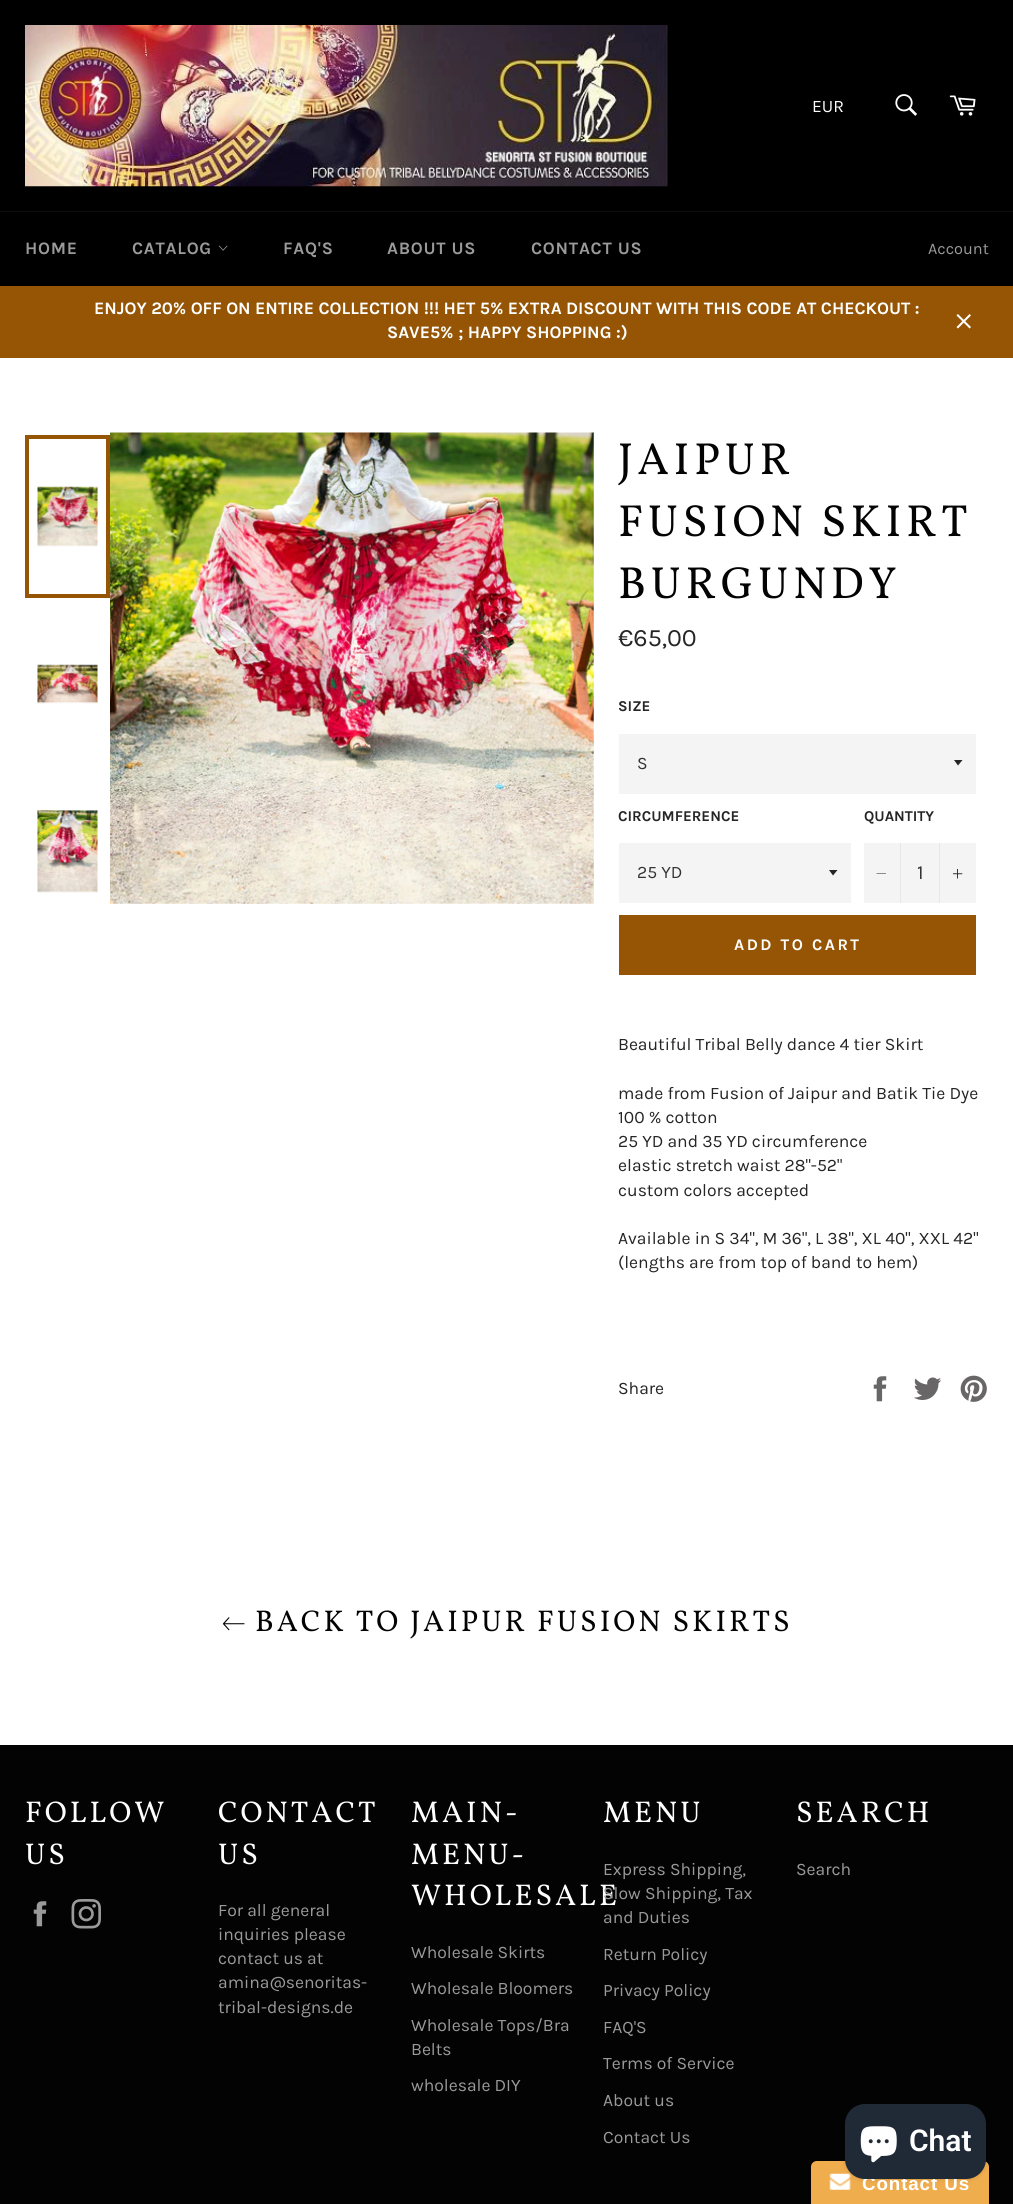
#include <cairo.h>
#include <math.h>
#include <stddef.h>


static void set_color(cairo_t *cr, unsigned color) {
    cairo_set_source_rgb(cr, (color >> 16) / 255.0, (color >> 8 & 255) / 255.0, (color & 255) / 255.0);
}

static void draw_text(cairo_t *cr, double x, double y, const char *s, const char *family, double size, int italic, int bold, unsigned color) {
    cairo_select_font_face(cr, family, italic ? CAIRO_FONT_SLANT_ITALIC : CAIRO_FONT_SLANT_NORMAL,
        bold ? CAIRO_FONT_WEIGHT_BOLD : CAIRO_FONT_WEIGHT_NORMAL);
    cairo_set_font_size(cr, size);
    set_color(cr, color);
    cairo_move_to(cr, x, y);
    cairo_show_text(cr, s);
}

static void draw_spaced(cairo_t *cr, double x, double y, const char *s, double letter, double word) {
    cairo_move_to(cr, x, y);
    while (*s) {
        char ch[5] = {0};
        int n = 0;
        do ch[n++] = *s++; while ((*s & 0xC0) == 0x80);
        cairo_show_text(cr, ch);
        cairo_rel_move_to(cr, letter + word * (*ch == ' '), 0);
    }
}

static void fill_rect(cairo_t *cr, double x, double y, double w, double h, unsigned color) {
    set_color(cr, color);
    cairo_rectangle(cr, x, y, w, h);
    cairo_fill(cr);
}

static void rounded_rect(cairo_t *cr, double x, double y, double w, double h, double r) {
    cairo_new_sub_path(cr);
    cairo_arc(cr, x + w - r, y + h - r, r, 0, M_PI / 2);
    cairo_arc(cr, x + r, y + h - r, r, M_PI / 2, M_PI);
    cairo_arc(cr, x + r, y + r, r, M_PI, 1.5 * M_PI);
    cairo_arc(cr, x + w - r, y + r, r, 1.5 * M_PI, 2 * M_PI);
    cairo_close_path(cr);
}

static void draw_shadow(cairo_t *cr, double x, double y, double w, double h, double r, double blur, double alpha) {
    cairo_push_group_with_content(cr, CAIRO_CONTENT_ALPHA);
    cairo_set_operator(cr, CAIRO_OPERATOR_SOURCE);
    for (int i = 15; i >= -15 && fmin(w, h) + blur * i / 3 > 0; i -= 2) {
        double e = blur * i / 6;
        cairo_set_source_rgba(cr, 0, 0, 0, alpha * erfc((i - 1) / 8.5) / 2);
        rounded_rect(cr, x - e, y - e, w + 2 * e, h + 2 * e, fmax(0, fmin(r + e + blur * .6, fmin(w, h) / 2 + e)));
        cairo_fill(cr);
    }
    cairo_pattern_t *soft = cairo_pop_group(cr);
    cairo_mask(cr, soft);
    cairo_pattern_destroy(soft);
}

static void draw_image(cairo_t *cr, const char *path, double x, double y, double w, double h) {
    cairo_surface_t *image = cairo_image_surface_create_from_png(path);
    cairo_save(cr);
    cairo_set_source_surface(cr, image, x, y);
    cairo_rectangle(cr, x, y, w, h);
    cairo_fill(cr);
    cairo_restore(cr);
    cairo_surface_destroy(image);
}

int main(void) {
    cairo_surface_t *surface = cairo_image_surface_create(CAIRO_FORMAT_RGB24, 1013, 2204);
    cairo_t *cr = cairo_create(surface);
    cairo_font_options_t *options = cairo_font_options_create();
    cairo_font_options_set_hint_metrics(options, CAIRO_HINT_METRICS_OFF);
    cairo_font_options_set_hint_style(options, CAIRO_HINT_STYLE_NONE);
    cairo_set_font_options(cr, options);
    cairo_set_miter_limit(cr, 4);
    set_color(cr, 0xFFFFFF);
    cairo_paint(cr);
    fill_rect(cr, 0, 0, 1013, 211, 0x000000);
    draw_image(cr, "assets/img1.png", 25, 25, 643, 162);
    draw_text(cr, 812, 112, "EUR", "Karla", 17.5, 0, 0, 0xFFFFFF);
    draw_image(cr, "assets/img2.png", 895, 94, 22, 22);
    draw_image(cr, "assets/img3.png", 949, 95, 27, 21);
    fill_rect(cr, 0, 212, 1013, 74, 0x000000);
    fill_rect(cr, 0, 211, 1013, 1, 0x0D0D0D);
    cairo_select_font_face(cr, "Karla", CAIRO_FONT_SLANT_NORMAL, CAIRO_FONT_WEIGHT_BOLD);
    set_color(cr, 0x9A9A9A);
    draw_spaced(cr, 25, 254, "HOME", 0.75, 0);
    draw_spaced(cr, 132, 254, "CATALOG", 0.75, 0);
    draw_image(cr, "assets/img4.png", 218, 245, 10, 6);
    draw_spaced(cr, 283, 254, "FAQ'S", 0.75, 0);
    draw_spaced(cr, 387, 254, "ABOUT US", 0.75, 0);
    draw_spaced(cr, 531, 254, "CONTACT US", 0.75, 0);
    draw_text(cr, 928, 254, "Account", "Karla", 16.25, 0, 0, 0x9A9A9A);
    fill_rect(cr, 0, 286, 1013, 72, 0x955504);
    draw_text(cr, 94, 314, "ENJOY 20% OFF ON ENTIRE COLLECTION !!! HET 5% EXTRA DISCOUNT WITH THIS CODE AT CHECKOUT :", "Karla", 17.5, 0, 1, 0xFFFFFF);
    draw_text(cr, 387, 338, "SAVE5% ; HAPPY SHOPPING :)", "Karla", 17.5, 0, 1, 0xFFFFFF);
    draw_image(cr, "assets/img5.png", 956, 314, 15, 15);
    draw_image(cr, "assets/img6.png", 37, 486, 61, 61);
    cairo_rectangle(cr, 27, 437, 81, 159);
    set_color(cr, 0x955504);
    cairo_set_line_width(cr, 4);
    cairo_stroke(cr);
    draw_image(cr, "assets/img7.png", 37, 664, 61, 40);
    draw_image(cr, "assets/img8.png", 37, 810, 61, 83);
    draw_image(cr, "assets/img9.png", 110, 432, 484, 472);
    cairo_select_font_face(cr, "Vollkorn", CAIRO_FONT_SLANT_NORMAL, CAIRO_FONT_WEIGHT_NORMAL);
    cairo_set_font_size(cr, 45);
    set_color(cr, 0x030303);
    draw_spaced(cr, 618, 474, "JAIPUR", 4.5, 0);
    draw_spaced(cr, 618, 536, "FUSION SKIRT", 4.5, 0);
    draw_spaced(cr, 618, 598, "BURGUNDY", 4.5, 0);
    draw_text(cr, 618, 646, "€65,00", "Karla", 25, 0, 0, 0x262424);
    draw_text(cr, 618, 711, "SIZE", "Karla", 15, 0, 1, 0x262424);
    fill_rect(cr, 619, 734, 357, 60, 0xF4F4F4);
    set_color(cr, 0x262424);
    cairo_new_path(cr);
    cairo_move_to(cr, 954, 760);
    cairo_line_to(cr, 958, 765.5);
    cairo_line_to(cr, 962.5, 760);
    cairo_close_path(cr);
    cairo_fill(cr);
    draw_text(cr, 637, 769, "S", "Karla", 17.5, 0, 0, 0x333333);
    draw_text(cr, 618, 821, "CIRCUMFERENCE", "Karla", 15, 0, 1, 0x262424);
    fill_rect(cr, 619, 843, 232, 60, 0xF4F4F4);
    set_color(cr, 0x262424);
    cairo_new_path(cr);
    cairo_move_to(cr, 829, 870);
    cairo_line_to(cr, 833, 875.5);
    cairo_line_to(cr, 837.5, 870);
    cairo_close_path(cr);
    cairo_fill(cr);
    draw_text(cr, 637, 878, "25 YD", "Karla", 17.5, 0, 0, 0x333333);
    draw_text(cr, 864, 821, "QUANTITY", "Karla", 15, 0, 1, 0x262424);
    fill_rect(cr, 864, 843, 112, 60, 0xF4F4F4);
    fill_rect(cr, 900, 843, 1, 60, 0xE7E7E7);
    set_color(cr, 0x262424);
    cairo_set_fill_rule(cr, CAIRO_FILL_RULE_EVEN_ODD);
    cairo_new_path(cr);
    cairo_move_to(cr, 886, 873.5);
    cairo_line_to(cr, 886, 874);
    cairo_line_to(cr, 876.5, 874);
    cairo_line_to(cr, 876.5, 873.5);
    cairo_close_path(cr);
    cairo_fill(cr);
    draw_text(cr, 917, 879, "1", "Karla", 20, 0, 0, 0x333333);
    fill_rect(cr, 939, 843, 1, 60, 0xE7E7E7);
    draw_image(cr, "assets/img10.png", 953, 869, 10, 10);
    fill_rect(cr, 619, 915, 357, 60, 0x955504);
    cairo_select_font_face(cr, "Karla", CAIRO_FONT_SLANT_NORMAL, CAIRO_FONT_WEIGHT_BOLD);
    cairo_set_font_size(cr, 16.25);
    set_color(cr, 0xFFFFFF);
    draw_spaced(cr, 734, 950, "ADD TO CART", 2.5, 0);
    draw_text(cr, 618, 1050, "Beautiful Tribal Belly dance 4 tier Skirt", "Karla", 17.5, 0, 0, 0x262424);
    draw_text(cr, 618, 1099, "made from Fusion of Jaipur and Batik Tie Dye", "Karla", 17.5, 0, 0, 0x262424);
    draw_text(cr, 618, 1123, "100 % cotton", "Karla", 17.5, 0, 0, 0x262424);
    draw_text(cr, 618, 1147, "25 YD and 35 YD circumference", "Karla", 17.5, 0, 0, 0x262424);
    draw_text(cr, 618, 1171, "elastic stretch waist 28\"-52\"", "Karla", 17.5, 0, 0, 0x262424);
    draw_text(cr, 618, 1196, "custom colors accepted", "Karla", 17.5, 0, 0, 0x262424);
    draw_text(cr, 618, 1244, "Available in S 34\", M 36\", L 38\", XL 40\", XXL 42\"", "Karla", 17.5, 0, 0, 0x262424);
    draw_text(cr, 618, 1268, "(lengths are from top of band to hem)", "Karla", 17.5, 0, 0, 0x262424);
    draw_text(cr, 618, 1394, "Share", "Karla", 17.5, 0, 0, 0x262424);
    draw_image(cr, "assets/img11.png", 873, 1376, 14, 26);
    draw_image(cr, "assets/img12.png", 914, 1377, 28, 23);
    draw_image(cr, "assets/img13.png", 960, 1375, 27, 27);
    draw_image(cr, "assets/img14.png", 222, 1617, 23, 14);
    cairo_select_font_face(cr, "Vollkorn", CAIRO_FONT_SLANT_NORMAL, CAIRO_FONT_WEIGHT_NORMAL);
    cairo_set_font_size(cr, 30);
    set_color(cr, 0x030303);
    draw_spaced(cr, 255, 1631, "BACK TO JAIPUR FUSION SKIRTS", 3, 0);
    fill_rect(cr, 0, 1745, 1013, 459, 0x030303);
    set_color(cr, 0xFFFFFF);
    draw_spaced(cr, 25, 1822, "FOLLOW", 3, 0);
    draw_spaced(cr, 25, 1864, "US", 3, 0);
    draw_image(cr, "assets/img15.png", 33, 1901, 14, 26);
    draw_image(cr, "assets/img16.png", 71, 1899, 30, 30);
    draw_spaced(cr, 218, 1822, "CONTACT", 3, 0);
    draw_spaced(cr, 218, 1864, "US", 3, 0);
    draw_text(cr, 218, 1916, "For all general", "Karla", 17.5, 0, 0, 0x9A9A9A);
    draw_text(cr, 218, 1940, "inquiries please", "Karla", 17.5, 0, 0, 0x9A9A9A);
    draw_text(cr, 218, 1964, "contact us at", "Karla", 17.5, 0, 0, 0x9A9A9A);
    draw_text(cr, 218, 1988, "amina@senoritas-", "Karla", 17.5, 0, 0, 0x9A9A9A);
    draw_text(cr, 218, 2013, "tribal-designs.de", "Karla", 17.5, 0, 0, 0x9A9A9A);
    cairo_select_font_face(cr, "Vollkorn", CAIRO_FONT_SLANT_NORMAL, CAIRO_FONT_WEIGHT_NORMAL);
    cairo_set_font_size(cr, 30);
    set_color(cr, 0xFFFFFF);
    draw_spaced(cr, 411, 1822, "MAIN-", 3, 0);
    draw_spaced(cr, 411, 1864, "MENU-", 3, 0);
    draw_spaced(cr, 411, 1905, "WHOLESALE", 3, 0);
    draw_text(cr, 411, 1958, "Wholesale Skirts", "Karla", 17.5, 0, 0, 0x9A9A9A);
    draw_text(cr, 411, 1994, "Wholesale Bloomers", "Karla", 17.5, 0, 0, 0x9A9A9A);
    draw_text(cr, 411, 2031, "Wholesale Tops/Bra", "Karla", 17.5, 0, 0, 0x9A9A9A);
    draw_text(cr, 411, 2055, "Belts", "Karla", 17.5, 0, 0, 0x9A9A9A);
    draw_text(cr, 411, 2091, "wholesale DIY", "Karla", 17.5, 0, 0, 0x9A9A9A);
    cairo_select_font_face(cr, "Vollkorn", CAIRO_FONT_SLANT_NORMAL, CAIRO_FONT_WEIGHT_NORMAL);
    cairo_set_font_size(cr, 30);
    set_color(cr, 0xFFFFFF);
    draw_spaced(cr, 603, 1822, "MENU", 3, 0);
    draw_text(cr, 603, 1875, "Express Shipping,", "Karla", 17.5, 0, 0, 0x9A9A9A);
    draw_text(cr, 603, 1899, "Slow Shipping, Tax", "Karla", 17.5, 0, 0, 0x9A9A9A);
    draw_text(cr, 603, 1923, "and Duties", "Karla", 17.5, 0, 0, 0x9A9A9A);
    draw_text(cr, 603, 1960, "Return Policy", "Karla", 17.5, 0, 0, 0x9A9A9A);
    draw_text(cr, 603, 1996, "Privacy Policy", "Karla", 17.5, 0, 0, 0x9A9A9A);
    draw_text(cr, 603, 2033, "FAQ'S", "Karla", 17.5, 0, 0, 0x9A9A9A);
    draw_text(cr, 603, 2069, "Terms of Service", "Karla", 17.5, 0, 0, 0x9A9A9A);
    draw_text(cr, 603, 2106, "About us", "Karla", 17.5, 0, 0, 0x9A9A9A);
    draw_text(cr, 603, 2143, "Contact Us", "Karla", 17.5, 0, 0, 0x9A9A9A);
    cairo_select_font_face(cr, "Vollkorn", CAIRO_FONT_SLANT_NORMAL, CAIRO_FONT_WEIGHT_NORMAL);
    cairo_set_font_size(cr, 30);
    set_color(cr, 0xFFFFFF);
    draw_spaced(cr, 796, 1822, "SEARCH", 3, 0);
    draw_text(cr, 796, 1875, "Search", "Karla", 17.5, 0, 0, 0x9A9A9A);
    set_color(cr, 0xF0AD4E);
    cairo_new_path(cr);
    cairo_move_to(cr, 817, 2161);
    cairo_line_to(cr, 983, 2161);
    cairo_curve_to(cr, 986.5, 2161, 989, 2163.5, 989, 2167);
    cairo_line_to(cr, 989, 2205);
    cairo_line_to(cr, 811, 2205);
    cairo_line_to(cr, 811, 2167);
    cairo_curve_to(cr, 811, 2163.5, 813.5, 2161, 817, 2161);
    cairo_close_path(cr);
    cairo_fill(cr);
    draw_image(cr, "assets/img18.png", 829, 2173, 22, 17);
    set_color(cr, 0x000000);
    draw_shadow(cr, 845, 2104, 141, 75, 20, 3, 0.15);
    cairo_select_font_face(cr, "Liberation Sans", CAIRO_FONT_SLANT_NORMAL, CAIRO_FONT_WEIGHT_BOLD);
    cairo_set_font_size(cr, 18.75);
    set_color(cr, 0xFFFFFF);
    draw_spaced(cr, 862, 2190, "Contact Us", 0.9, 0);
    set_color(cr, 0x202A36);
    rounded_rect(cr, 845, 2104, 141, 75, 20);
    cairo_fill(cr);
    draw_image(cr, "assets/img17.png", 860, 2126, 37, 37);
    draw_text(cr, 909, 2151, "Chat", "Roboto SemiBold", 30, 0, 0, 0xFFFFFF);
    cairo_surface_write_to_png(surface, "output.png");
    cairo_font_options_destroy(options);
    cairo_destroy(cr);
    cairo_surface_destroy(surface);
    return 0;
}
